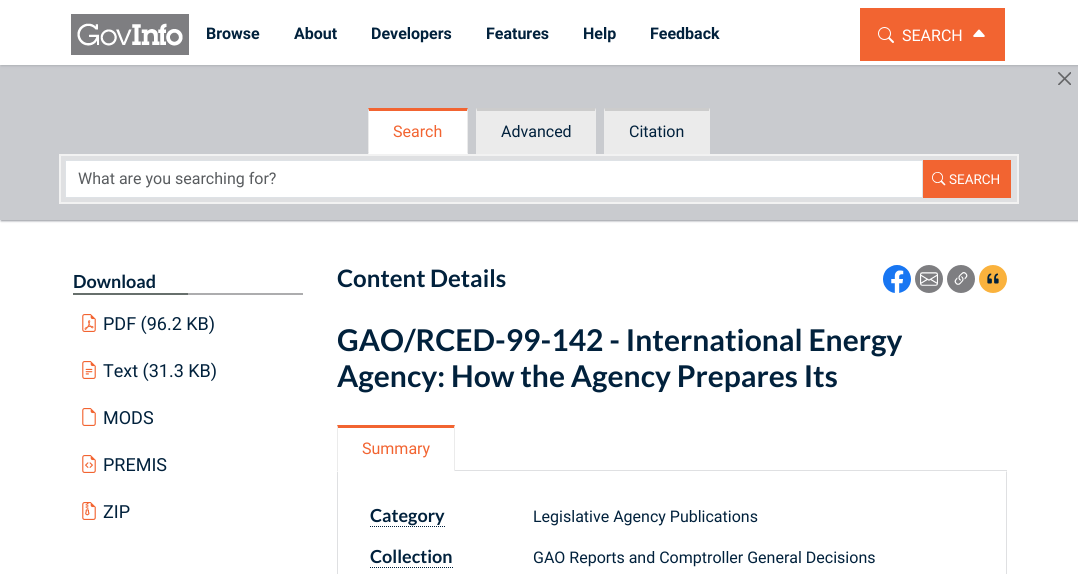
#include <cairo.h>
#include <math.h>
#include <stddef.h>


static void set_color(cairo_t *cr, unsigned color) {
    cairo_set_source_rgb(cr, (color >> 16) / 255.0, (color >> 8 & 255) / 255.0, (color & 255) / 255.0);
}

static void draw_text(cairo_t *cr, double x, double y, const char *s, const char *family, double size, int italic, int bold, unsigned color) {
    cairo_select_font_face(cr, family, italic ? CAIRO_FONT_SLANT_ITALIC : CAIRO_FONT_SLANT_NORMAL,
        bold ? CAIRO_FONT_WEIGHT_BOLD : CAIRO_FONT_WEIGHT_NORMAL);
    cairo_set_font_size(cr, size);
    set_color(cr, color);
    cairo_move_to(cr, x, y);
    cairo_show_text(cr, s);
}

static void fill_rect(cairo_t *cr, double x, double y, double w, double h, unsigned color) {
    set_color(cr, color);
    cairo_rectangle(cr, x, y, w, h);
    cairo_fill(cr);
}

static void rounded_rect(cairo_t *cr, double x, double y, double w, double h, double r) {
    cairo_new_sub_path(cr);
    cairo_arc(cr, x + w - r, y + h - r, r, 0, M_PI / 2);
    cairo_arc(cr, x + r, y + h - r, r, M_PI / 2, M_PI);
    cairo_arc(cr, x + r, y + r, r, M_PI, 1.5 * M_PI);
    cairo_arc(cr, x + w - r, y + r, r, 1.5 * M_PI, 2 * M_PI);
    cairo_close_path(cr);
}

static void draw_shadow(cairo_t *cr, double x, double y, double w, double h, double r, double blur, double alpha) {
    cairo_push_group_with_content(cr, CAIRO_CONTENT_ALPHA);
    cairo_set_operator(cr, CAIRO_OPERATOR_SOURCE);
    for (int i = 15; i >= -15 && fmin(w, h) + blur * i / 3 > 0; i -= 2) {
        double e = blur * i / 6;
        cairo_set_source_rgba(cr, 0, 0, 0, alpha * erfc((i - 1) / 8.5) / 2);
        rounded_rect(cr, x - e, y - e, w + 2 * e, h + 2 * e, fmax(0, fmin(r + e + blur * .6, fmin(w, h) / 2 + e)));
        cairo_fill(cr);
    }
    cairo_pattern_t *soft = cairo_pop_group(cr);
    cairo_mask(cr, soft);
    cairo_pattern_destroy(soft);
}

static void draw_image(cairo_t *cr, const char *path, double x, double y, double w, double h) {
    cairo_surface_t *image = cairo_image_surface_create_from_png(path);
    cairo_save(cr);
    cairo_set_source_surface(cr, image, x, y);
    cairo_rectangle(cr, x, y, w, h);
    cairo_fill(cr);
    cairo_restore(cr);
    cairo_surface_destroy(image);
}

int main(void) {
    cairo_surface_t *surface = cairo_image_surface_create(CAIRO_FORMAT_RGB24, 1078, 574);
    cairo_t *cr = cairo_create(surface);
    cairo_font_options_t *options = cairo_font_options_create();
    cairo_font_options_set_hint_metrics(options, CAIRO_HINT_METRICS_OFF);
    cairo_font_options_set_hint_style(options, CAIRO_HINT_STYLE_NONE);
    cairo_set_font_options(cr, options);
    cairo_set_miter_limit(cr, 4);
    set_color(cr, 0xFFFFFF);
    cairo_paint(cr);
    set_color(cr, 0x94979E);
    draw_shadow(cr, 1, 66, 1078, 155, 0, 1, 1);
    fill_rect(cr, 0, 65, 1078, 155, 0xC9CBCF);
    set_color(cr, 0xAFB1B6);
    draw_shadow(cr, 1, 1, 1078, 65, 0, 1, 1);
    fill_rect(cr, 0, 0, 1078, 65, 0xFFFFFF);
    draw_image(cr, "assets/img1.png", 71, 14, 118, 41);
    draw_text(cr, 206, 39, "Browse", "Roboto", 16, 0, 1, 0x01213C);
    draw_text(cr, 294, 39, "About", "Roboto", 16, 0, 1, 0x01213C);
    draw_text(cr, 371, 39, "Developers", "Roboto", 16, 0, 1, 0x01213C);
    draw_text(cr, 486, 39, "Features", "Roboto", 16, 0, 1, 0x01213C);
    draw_text(cr, 583, 39, "Help", "Roboto", 16, 0, 1, 0x01213C);
    draw_text(cr, 650, 39, "Feedback", "Roboto", 16, 0, 1, 0x01213C);
    fill_rect(cr, 860, 8, 145, 53, 0xF26431);
    draw_image(cr, "assets/img2.png", 878, 27, 16, 16);
    draw_text(cr, 902, 41, "SEARCH", "Roboto", 16, 0, 0, 0xFFFFFF);
    draw_image(cr, "assets/img3.png", 973, 29, 12, 8);
    draw_image(cr, "assets/img4.png", 1058, 72, 13, 13);
    fill_rect(cr, 369, 111, 98, 41, 0xFFFFFF);
    set_color(cr, 0xF26431);
    cairo_new_path(cr);
    cairo_move_to(cr, 368, 108);
    cairo_line_to(cr, 468, 108);
    cairo_line_to(cr, 467, 111);
    cairo_line_to(cr, 369, 111);
    cairo_close_path(cr);
    cairo_fill(cr);
    set_color(cr, 0xEBEBEB);
    cairo_new_path(cr);
    cairo_move_to(cr, 468, 108);
    cairo_line_to(cr, 468, 154);
    cairo_line_to(cr, 467, 152);
    cairo_line_to(cr, 467, 111);
    cairo_close_path(cr);
    cairo_fill(cr);
    set_color(cr, 0xFFFFFF);
    cairo_new_path(cr);
    cairo_move_to(cr, 468, 154);
    cairo_line_to(cr, 368, 154);
    cairo_line_to(cr, 369, 152);
    cairo_line_to(cr, 467, 152);
    cairo_close_path(cr);
    cairo_fill(cr);
    set_color(cr, 0xEBEBEB);
    cairo_new_path(cr);
    cairo_move_to(cr, 368, 154);
    cairo_line_to(cr, 368, 108);
    cairo_line_to(cr, 369, 111);
    cairo_line_to(cr, 369, 152);
    cairo_close_path(cr);
    cairo_fill(cr);
    draw_text(cr, 393, 137, "Search", "Roboto", 16, 0, 0, 0xF26431);
    fill_rect(cr, 476, 108, 120, 46, 0xEBEBEB);
    set_color(cr, 0xCCCCCC);
    cairo_new_path(cr);
    cairo_move_to(cr, 476, 108);
    cairo_line_to(cr, 596, 108);
    cairo_line_to(cr, 595, 111);
    cairo_line_to(cr, 477, 111);
    cairo_close_path(cr);
    cairo_fill(cr);
    set_color(cr, 0xEBEBEB);
    cairo_new_path(cr);
    cairo_move_to(cr, 596, 108);
    cairo_line_to(cr, 596, 154);
    cairo_line_to(cr, 595, 152);
    cairo_line_to(cr, 595, 111);
    cairo_close_path(cr);
    cairo_fill(cr);
    cairo_new_path(cr);
    cairo_move_to(cr, 476, 154);
    cairo_line_to(cr, 476, 108);
    cairo_line_to(cr, 477, 111);
    cairo_line_to(cr, 477, 152);
    cairo_close_path(cr);
    cairo_fill(cr);
    draw_text(cr, 501, 137, "Advanced", "Roboto", 16, 0, 0, 0x01213C);
    fill_rect(cr, 604, 108, 106, 46, 0xEBEBEB);
    set_color(cr, 0xCCCCCC);
    cairo_new_path(cr);
    cairo_move_to(cr, 604, 108);
    cairo_line_to(cr, 710, 108);
    cairo_line_to(cr, 709, 111);
    cairo_line_to(cr, 605, 111);
    cairo_close_path(cr);
    cairo_fill(cr);
    set_color(cr, 0xEBEBEB);
    cairo_new_path(cr);
    cairo_move_to(cr, 710, 108);
    cairo_line_to(cr, 710, 154);
    cairo_line_to(cr, 709, 152);
    cairo_line_to(cr, 709, 111);
    cairo_close_path(cr);
    cairo_fill(cr);
    cairo_new_path(cr);
    cairo_move_to(cr, 604, 154);
    cairo_line_to(cr, 604, 108);
    cairo_line_to(cr, 605, 111);
    cairo_line_to(cr, 605, 152);
    cairo_close_path(cr);
    cairo_fill(cr);
    draw_text(cr, 629, 137, "Citation", "Roboto", 16, 0, 0, 0x01213C);
    set_color(cr, 0xDFE0E2);
    cairo_rectangle(cr, 60, 155, 958, 48);
    cairo_fill_preserve(cr);
    set_color(cr, 0xF2F2F2);
    cairo_stroke(cr);
    set_color(cr, 0xFFFFFF);
    cairo_rectangle(cr, 65.5, 160.5, 857, 37);
    cairo_fill_preserve(cr);
    set_color(cr, 0xDEE2E6);
    cairo_set_line_width(cr, 1);
    cairo_stroke(cr);
    draw_text(cr, 78, 184, "What are you searching for?", "Roboto", 16, 0, 0, 0x595C5F);
    fill_rect(cr, 923, 160, 88, 38, 0xF26431);
    draw_image(cr, "assets/img5.png", 932, 172, 14, 14);
    draw_text(cr, 949, 184, "SEARCH", "Roboto", 13.5, 0, 0, 0xFFFFFF);
    draw_image(cr, "assets/img6.png", 73, 293, 230, 2);
    draw_text(cr, 73, 288, "Download", "Lato", 18, 0, 1, 0x01213C);
    draw_image(cr, "assets/img7.png", 82, 314, 14, 18);
    draw_text(cr, 103, 330, "PDF (96.2 KB)", "Roboto", 18, 0, 0, 0x01213C);
    draw_image(cr, "assets/img8.png", 82, 361, 14, 18);
    draw_text(cr, 103, 377, "Text (31.3 KB)", "Roboto", 18, 0, 0, 0x01213C);
    draw_image(cr, "assets/img9.png", 82, 408, 14, 18);
    draw_text(cr, 103, 424, "MODS", "Roboto", 18, 0, 0, 0x01213C);
    draw_image(cr, "assets/img10.png", 82, 455, 14, 18);
    draw_text(cr, 103, 471, "PREMIS", "Roboto", 18, 0, 0, 0x01213C);
    draw_image(cr, "assets/img11.png", 82, 502, 14, 18);
    draw_text(cr, 103, 518, "ZIP", "Roboto", 18, 0, 0, 0x01213C);
    draw_text(cr, 337, 287, "Content Details", "Lato", 24, 0, 1, 0x01213C);
    draw_image(cr, "assets/img12.png", 883, 265, 28, 28);
    set_color(cr, 0x7E7E81);
    cairo_arc(cr, 929, 279, 14, 0, 2 * M_PI);
    cairo_fill(cr);
    draw_image(cr, "assets/img13.png", 920, 272, 18, 14);
    cairo_arc(cr, 961, 279, 14, 0, 2 * M_PI);
    cairo_fill(cr);
    draw_image(cr, "assets/img14.png", 954, 272, 14, 13);
    set_color(cr, 0xFAB23D);
    cairo_arc(cr, 993, 279, 14, 0, 2 * M_PI);
    cairo_fill(cr);
    draw_image(cr, "assets/img15.png", 987, 273, 12, 11);
    draw_text(cr, 337, 351, "GAO/RCED-99-142 - International Energy", "Lato", 30, 0, 1, 0x01213C);
    draw_text(cr, 337, 387, "Agency: How the Agency Prepares Its", "Lato", 30, 0, 1, 0x01213C);
    fill_rect(cr, 337, 470, 670, 1, 0xDFE0E2);
    set_color(cr, 0xF26431);
    cairo_new_path(cr);
    cairo_move_to(cr, 337, 425);
    cairo_line_to(cr, 455, 425);
    cairo_line_to(cr, 454, 428);
    cairo_line_to(cr, 338, 428);
    cairo_close_path(cr);
    cairo_fill(cr);
    set_color(cr, 0xEBEBEB);
    cairo_new_path(cr);
    cairo_move_to(cr, 455, 425);
    cairo_line_to(cr, 455, 472);
    cairo_line_to(cr, 454, 470);
    cairo_line_to(cr, 454, 428);
    cairo_close_path(cr);
    cairo_fill(cr);
    set_color(cr, 0xDFE0E2);
    cairo_new_path(cr);
    cairo_move_to(cr, 337, 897);
    cairo_line_to(cr, 337, 471);
    cairo_line_to(cr, 338, 472);
    cairo_line_to(cr, 338, 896);
    cairo_close_path(cr);
    cairo_fill(cr);
    set_color(cr, 0xFFFFFF);
    cairo_new_path(cr);
    cairo_move_to(cr, 455, 472);
    cairo_line_to(cr, 337, 472);
    cairo_line_to(cr, 338, 470);
    cairo_line_to(cr, 454, 470);
    cairo_close_path(cr);
    cairo_fill(cr);
    set_color(cr, 0xEBEBEB);
    cairo_new_path(cr);
    cairo_move_to(cr, 337, 472);
    cairo_line_to(cr, 337, 425);
    cairo_line_to(cr, 338, 428);
    cairo_line_to(cr, 338, 470);
    cairo_close_path(cr);
    cairo_fill(cr);
    draw_text(cr, 362, 454, "Summary", "Roboto", 16, 0, 0, 0xF26431);
    set_color(cr, 0xDFE0E2);
    cairo_new_path(cr);
    cairo_move_to(cr, 1007, 471);
    cairo_line_to(cr, 1007, 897);
    cairo_line_to(cr, 1006, 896);
    cairo_line_to(cr, 1006, 472);
    cairo_close_path(cr);
    cairo_fill(cr);
    draw_text(cr, 370, 522, "Category", "Lato", 18, 0, 1, 0x01213C);
    cairo_new_path(cr);
    cairo_move_to(cr, 370, 526.5);
    cairo_line_to(cr, 445, 526.5);
    cairo_set_dash(cr, (double[]){1, 1}, 2, 0);
    cairo_stroke(cr);
    draw_text(cr, 533, 522, "Legislative Agency Publications", "Roboto", 16, 0, 0, 0x01213C);
    draw_text(cr, 370, 563, "Collection", "Lato", 18, 0, 1, 0x01213C);
    cairo_new_path(cr);
    cairo_move_to(cr, 370, 567.5);
    cairo_line_to(cr, 453, 567.5);
    cairo_stroke(cr);
    draw_text(cr, 533, 563, "GAO Reports and Comptroller General Decisions", "Roboto", 16, 0, 0, 0x01213C);
    cairo_surface_write_to_png(surface, "output.png");
    cairo_font_options_destroy(options);
    cairo_destroy(cr);
    cairo_surface_destroy(surface);
    return 0;
}
